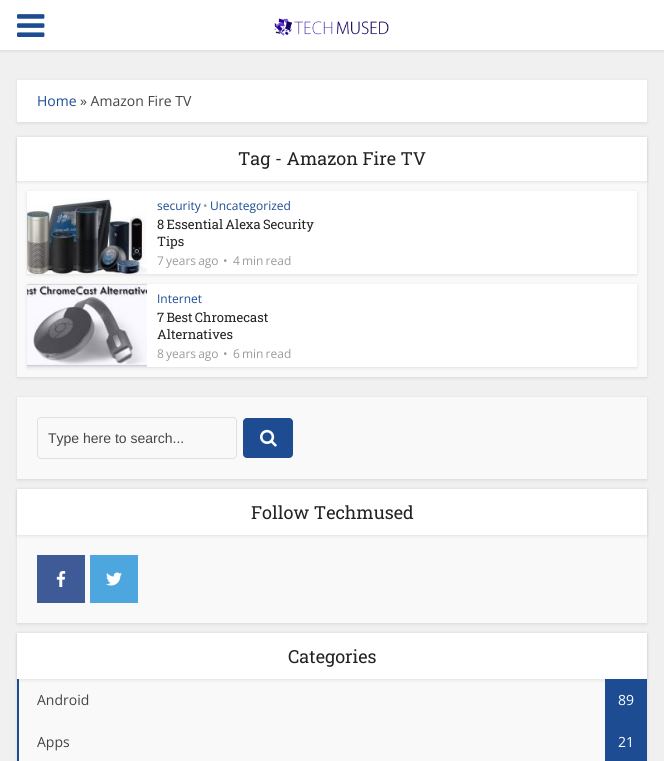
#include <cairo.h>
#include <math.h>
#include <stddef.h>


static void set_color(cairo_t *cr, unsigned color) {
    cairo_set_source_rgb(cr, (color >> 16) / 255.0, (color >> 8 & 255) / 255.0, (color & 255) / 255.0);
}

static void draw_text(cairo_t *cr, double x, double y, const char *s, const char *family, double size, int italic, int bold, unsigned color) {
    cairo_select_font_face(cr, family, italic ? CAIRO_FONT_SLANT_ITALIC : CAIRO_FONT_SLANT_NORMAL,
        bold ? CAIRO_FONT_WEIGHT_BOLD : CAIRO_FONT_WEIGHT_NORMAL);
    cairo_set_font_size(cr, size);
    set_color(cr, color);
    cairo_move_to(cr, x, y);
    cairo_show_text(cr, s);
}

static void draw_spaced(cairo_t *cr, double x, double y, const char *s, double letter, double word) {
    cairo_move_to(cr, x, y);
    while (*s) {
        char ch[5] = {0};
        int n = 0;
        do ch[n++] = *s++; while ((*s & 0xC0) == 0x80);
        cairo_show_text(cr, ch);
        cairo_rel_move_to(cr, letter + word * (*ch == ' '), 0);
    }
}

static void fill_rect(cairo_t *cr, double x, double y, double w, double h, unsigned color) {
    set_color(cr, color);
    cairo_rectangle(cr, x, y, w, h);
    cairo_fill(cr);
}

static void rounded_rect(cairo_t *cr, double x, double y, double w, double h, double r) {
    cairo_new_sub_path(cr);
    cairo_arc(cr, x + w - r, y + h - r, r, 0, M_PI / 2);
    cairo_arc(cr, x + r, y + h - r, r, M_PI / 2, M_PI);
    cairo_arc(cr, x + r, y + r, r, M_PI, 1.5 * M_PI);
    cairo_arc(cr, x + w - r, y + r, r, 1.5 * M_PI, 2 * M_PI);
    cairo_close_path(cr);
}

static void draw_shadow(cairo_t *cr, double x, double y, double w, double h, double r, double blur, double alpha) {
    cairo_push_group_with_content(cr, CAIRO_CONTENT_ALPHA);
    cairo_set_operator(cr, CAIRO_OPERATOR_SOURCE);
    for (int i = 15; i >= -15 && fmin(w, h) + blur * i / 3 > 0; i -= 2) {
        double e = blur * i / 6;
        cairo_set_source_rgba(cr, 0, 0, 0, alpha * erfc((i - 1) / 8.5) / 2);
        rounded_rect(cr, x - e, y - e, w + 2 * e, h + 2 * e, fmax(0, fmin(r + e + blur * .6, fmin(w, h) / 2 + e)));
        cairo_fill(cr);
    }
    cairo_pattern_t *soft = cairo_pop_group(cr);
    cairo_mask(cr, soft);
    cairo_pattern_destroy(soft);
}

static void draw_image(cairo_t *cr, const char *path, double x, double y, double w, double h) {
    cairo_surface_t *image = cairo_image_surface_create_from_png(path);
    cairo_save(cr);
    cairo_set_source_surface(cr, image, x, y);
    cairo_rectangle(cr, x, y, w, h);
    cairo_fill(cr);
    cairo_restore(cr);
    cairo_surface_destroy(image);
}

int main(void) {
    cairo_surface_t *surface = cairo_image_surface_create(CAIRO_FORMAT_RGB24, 664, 761);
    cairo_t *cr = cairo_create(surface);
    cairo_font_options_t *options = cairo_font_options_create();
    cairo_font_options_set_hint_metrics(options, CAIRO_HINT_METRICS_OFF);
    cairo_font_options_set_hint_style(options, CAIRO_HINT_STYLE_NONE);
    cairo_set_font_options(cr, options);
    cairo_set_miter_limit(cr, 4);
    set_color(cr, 0xF0F0F0);
    cairo_paint(cr);
    set_color(cr, 0x000000);
    draw_shadow(cr, 0, 1, 664, 50, 0, 1.5, 0.1);
    fill_rect(cr, 0, 0, 664, 50, 0xFFFFFF);
    draw_image(cr, "assets/img1.png", 17, 14, 28, 23);
    draw_image(cr, "assets/img2.png", 274, 18, 115, 18);
    set_color(cr, 0x000000);
    draw_shadow(cr, 17, 81, 630, 42, 0, 1.5, 0.1);
    fill_rect(cr, 17, 80, 630, 42, 0xFFFFFF);
    draw_text(cr, 37, 106, "Home", "Open Sans", 14, 0, 0, 0x1D4C93);
    draw_text(cr, 80, 106, "» Amazon Fire TV", "Open Sans", 14, 0, 0, 0x444444);
    set_color(cr, 0x000000);
    draw_shadow(cr, 17, 138, 630, 240, 0, 1.5, 0.1);
    fill_rect(cr, 17, 181, 630, 196, 0xF9F9F9);
    set_color(cr, 0x000000);
    draw_shadow(cr, 17, 138, 630, 44, 0, 1.5, 0.1);
    fill_rect(cr, 17, 137, 630, 44, 0xFFFFFF);
    draw_text(cr, 238, 165, "Tag - Amazon Fire TV", "Roboto Slab", 18, 0, 0, 0x232323);
    set_color(cr, 0x000000);
    draw_shadow(cr, 27, 192, 610, 83, 0, 1.5, 0.1);
    fill_rect(cr, 27, 191, 610, 83, 0xFFFFFF);
    draw_image(cr, "assets/img3.png", 27, 198, 120, 76);
    draw_text(cr, 157, 210, "security", "Open Sans", 12, 0, 0, 0x1D4C93);
    draw_text(cr, 203, 210, "•", "Open Sans", 12, 0, 0, 0x9B9B9B);
    draw_text(cr, 210, 210, "Uncategorized", "Open Sans", 12, 0, 0, 0x1D4C93);
    cairo_select_font_face(cr, "Roboto Slab", CAIRO_FONT_SLANT_NORMAL, CAIRO_FONT_WEIGHT_NORMAL);
    cairo_set_font_size(cr, 13);
    set_color(cr, 0x232323);
    draw_spaced(cr, 157, 229, "8 Essential Alexa Security", 0, -1);
    draw_text(cr, 157, 246, "Tips", "Roboto Slab", 13, 0, 0, 0x232323);
    cairo_select_font_face(cr, "Open Sans", CAIRO_FONT_SLANT_NORMAL, CAIRO_FONT_WEIGHT_NORMAL);
    cairo_set_font_size(cr, 12);
    set_color(cr, 0x9B9B9B);
    draw_spaced(cr, 157, 265, "7 years ago", 0, -1);
    draw_text(cr, 223, 265, "•", "Open Sans", 12, 0, 0, 0x9B9B9B);
    draw_spaced(cr, 233, 265, "4 min read", 0, -1);
    set_color(cr, 0x000000);
    draw_shadow(cr, 27, 285, 610, 83, 0, 1.5, 0.1);
    fill_rect(cr, 147, 284, 490, 83, 0xFFFFFF);
    draw_image(cr, "assets/img4.png", 27, 284, 120, 83);
    draw_text(cr, 157, 303, "Internet", "Open Sans", 12, 0, 0, 0x1D4C93);
    cairo_select_font_face(cr, "Roboto Slab", CAIRO_FONT_SLANT_NORMAL, CAIRO_FONT_WEIGHT_NORMAL);
    cairo_set_font_size(cr, 13);
    set_color(cr, 0x232323);
    draw_spaced(cr, 157, 322, "7 Best Chromecast", 0, -1);
    draw_text(cr, 157, 339, "Alternatives", "Roboto Slab", 13, 0, 0, 0x232323);
    cairo_select_font_face(cr, "Open Sans", CAIRO_FONT_SLANT_NORMAL, CAIRO_FONT_WEIGHT_NORMAL);
    cairo_set_font_size(cr, 12);
    set_color(cr, 0x9B9B9B);
    draw_spaced(cr, 157, 358, "8 years ago", 0, -1);
    draw_text(cr, 223, 358, "•", "Open Sans", 12, 0, 0, 0x9B9B9B);
    draw_spaced(cr, 233, 358, "6 min read", 0, -1);
    set_color(cr, 0x000000);
    draw_shadow(cr, 17, 398, 630, 82, 0, 1.5, 0.1);
    fill_rect(cr, 17, 397, 630, 82, 0xF9F9F9);
    rounded_rect(cr, 37.5, 417.5, 199, 41, 3.5);
    set_color(cr, 0xE0E0E0);
    cairo_set_line_width(cr, 1);
    cairo_stroke(cr);
    draw_text(cr, 48, 443, "Type here to search...", "Liberation Sans", 14, 0, 0, 0x444444);
    set_color(cr, 0x1D4C93);
    rounded_rect(cr, 243, 418, 50, 40, 4);
    cairo_fill(cr);
    draw_image(cr, "assets/img5.png", 260, 429, 17, 18);
    set_color(cr, 0x000000);
    draw_shadow(cr, 17, 490, 630, 134, 0, 1.5, 0.1);
    fill_rect(cr, 17, 535, 630, 88, 0xF9F9F9);
    set_color(cr, 0x000000);
    draw_shadow(cr, 17, 490, 630, 46, 0, 1.5, 0.1);
    fill_rect(cr, 17, 489, 630, 46, 0xFFFFFF);
    draw_text(cr, 251, 519, "Follow Techmused", "Roboto Slab", 18, 0, 0, 0x232323);
    fill_rect(cr, 37, 555, 48, 48, 0x3E5B98);
    draw_image(cr, "assets/img6.png", 56, 571, 10, 16);
    fill_rect(cr, 90, 555, 48, 48, 0x4DA7DE);
    draw_image(cr, "assets/img7.png", 106, 572, 16, 14);
    set_color(cr, 0x000000);
    draw_shadow(cr, 17, 634, 630, 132, 0, 1.5, 0.1);
    fill_rect(cr, 19, 679, 586, 82, 0xF9F9F9);
    set_color(cr, 0x000000);
    draw_shadow(cr, 17, 634, 630, 46, 0, 1.5, 0.1);
    fill_rect(cr, 17, 633, 630, 46, 0xFFFFFF);
    draw_text(cr, 288, 663, "Categories", "Roboto Slab", 18, 0, 0, 0x232323);
    fill_rect(cr, 17, 679, 2, 82, 0x1D4C93);
    draw_text(cr, 37, 705, "Android", "Open Sans", 14, 0, 0, 0x444444);
    fill_rect(cr, 605, 679, 42, 82, 0x1D4C93);
    draw_text(cr, 618, 705, "89", "Open Sans", 14, 0, 0, 0xFFFFFF);
    draw_text(cr, 37, 747, "Apps", "Open Sans", 14, 0, 0, 0x444444);
    draw_text(cr, 618, 747, "21", "Open Sans", 14, 0, 0, 0xFFFFFF);
    cairo_surface_write_to_png(surface, "output.png");
    cairo_font_options_destroy(options);
    cairo_destroy(cr);
    cairo_surface_destroy(surface);
    return 0;
}
